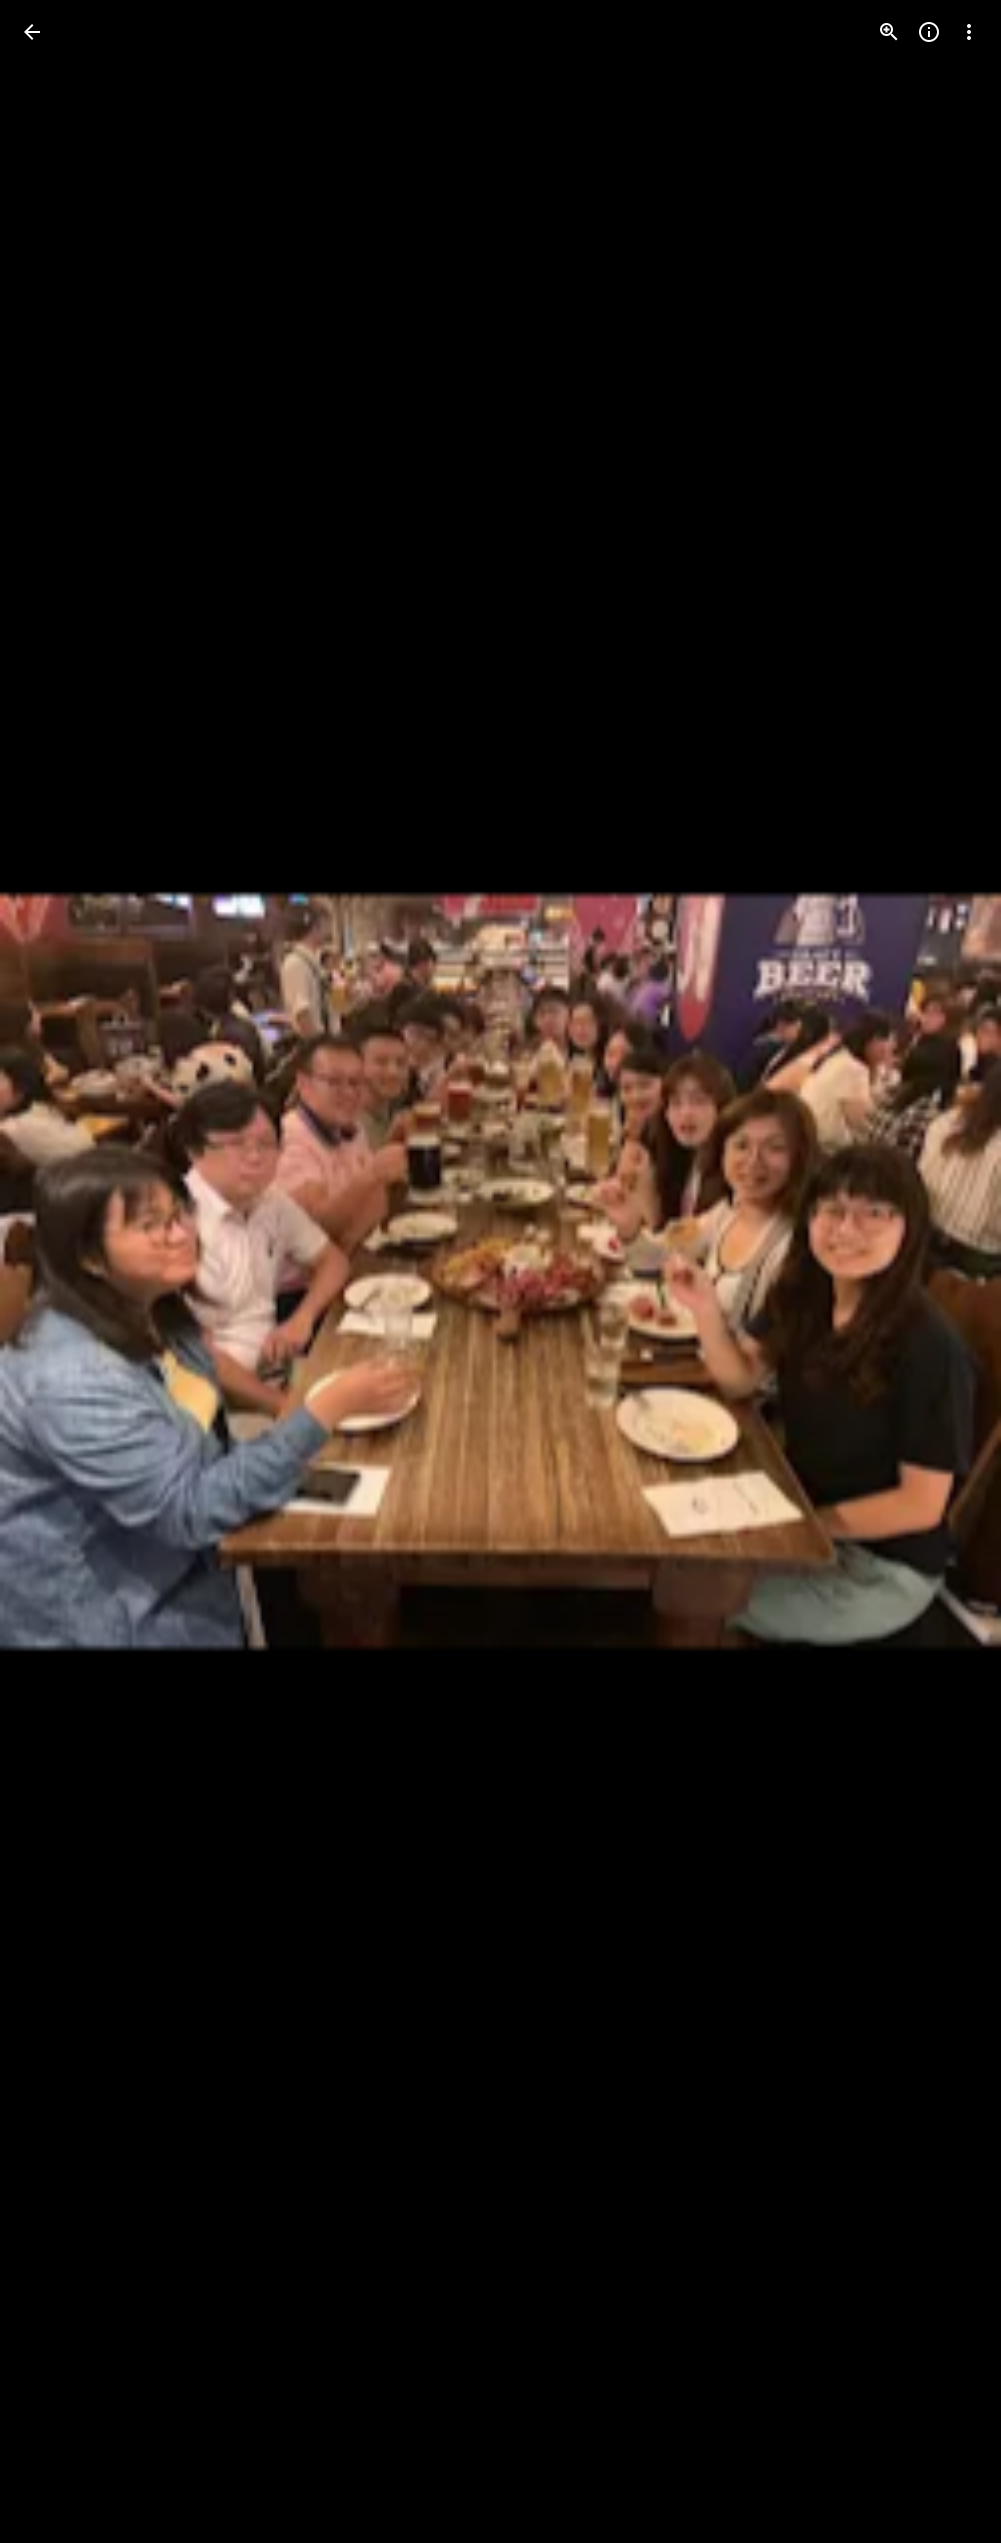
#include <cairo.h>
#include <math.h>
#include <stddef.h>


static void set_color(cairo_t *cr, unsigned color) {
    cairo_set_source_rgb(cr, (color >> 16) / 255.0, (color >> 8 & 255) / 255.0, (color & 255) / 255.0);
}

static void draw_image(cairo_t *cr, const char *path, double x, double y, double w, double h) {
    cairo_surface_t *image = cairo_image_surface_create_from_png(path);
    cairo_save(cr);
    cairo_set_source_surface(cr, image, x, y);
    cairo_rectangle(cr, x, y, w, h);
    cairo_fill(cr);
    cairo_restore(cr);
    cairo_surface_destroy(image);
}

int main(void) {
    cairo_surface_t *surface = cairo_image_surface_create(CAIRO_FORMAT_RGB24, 1001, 2543);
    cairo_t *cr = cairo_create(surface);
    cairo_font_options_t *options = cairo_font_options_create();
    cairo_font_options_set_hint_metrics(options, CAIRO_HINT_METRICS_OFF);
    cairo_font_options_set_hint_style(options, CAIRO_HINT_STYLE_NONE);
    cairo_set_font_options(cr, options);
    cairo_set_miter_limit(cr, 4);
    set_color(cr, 0x000000);
    cairo_paint(cr);
    draw_image(cr, "assets/img1.png", 24, 24, 16, 16);
    draw_image(cr, "assets/img2.png", 880, 23, 18, 18);
    draw_image(cr, "assets/img3.png", 919, 22, 20, 20);
    draw_image(cr, "assets/img4.png", 967, 24, 4, 16);
    draw_image(cr, "assets/img5.png", 0, 891, 1001, 761);
    cairo_surface_write_to_png(surface, "output.png");
    cairo_font_options_destroy(options);
    cairo_destroy(cr);
    cairo_surface_destroy(surface);
    return 0;
}
